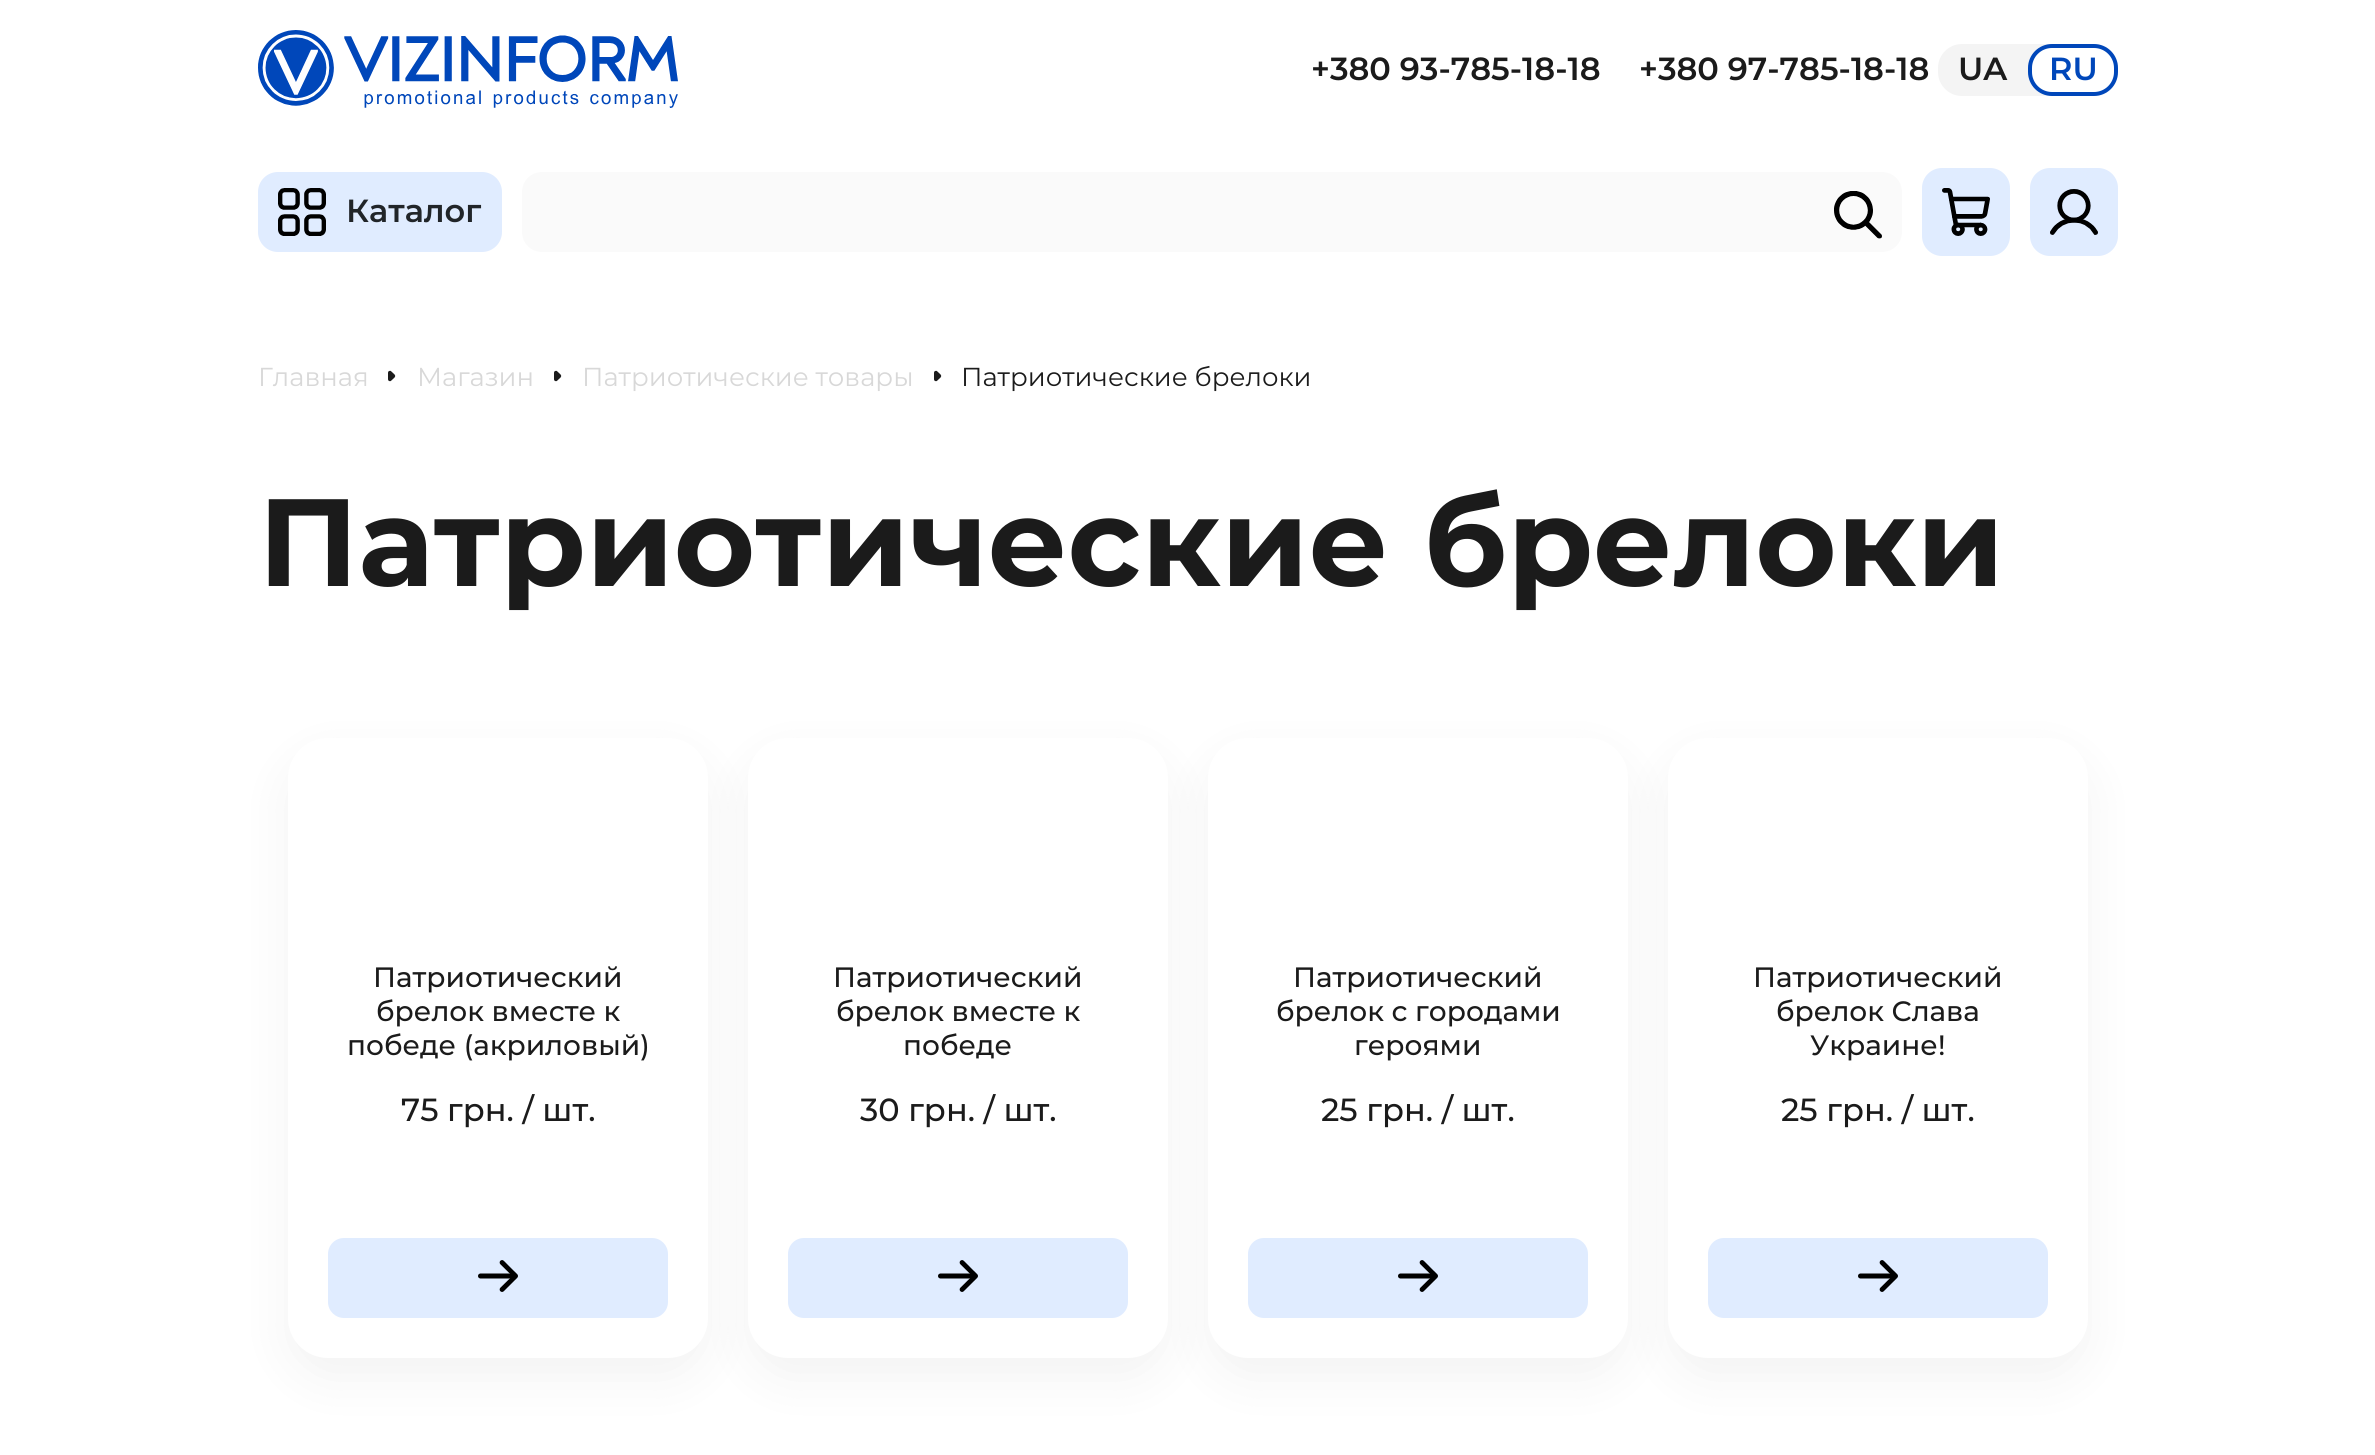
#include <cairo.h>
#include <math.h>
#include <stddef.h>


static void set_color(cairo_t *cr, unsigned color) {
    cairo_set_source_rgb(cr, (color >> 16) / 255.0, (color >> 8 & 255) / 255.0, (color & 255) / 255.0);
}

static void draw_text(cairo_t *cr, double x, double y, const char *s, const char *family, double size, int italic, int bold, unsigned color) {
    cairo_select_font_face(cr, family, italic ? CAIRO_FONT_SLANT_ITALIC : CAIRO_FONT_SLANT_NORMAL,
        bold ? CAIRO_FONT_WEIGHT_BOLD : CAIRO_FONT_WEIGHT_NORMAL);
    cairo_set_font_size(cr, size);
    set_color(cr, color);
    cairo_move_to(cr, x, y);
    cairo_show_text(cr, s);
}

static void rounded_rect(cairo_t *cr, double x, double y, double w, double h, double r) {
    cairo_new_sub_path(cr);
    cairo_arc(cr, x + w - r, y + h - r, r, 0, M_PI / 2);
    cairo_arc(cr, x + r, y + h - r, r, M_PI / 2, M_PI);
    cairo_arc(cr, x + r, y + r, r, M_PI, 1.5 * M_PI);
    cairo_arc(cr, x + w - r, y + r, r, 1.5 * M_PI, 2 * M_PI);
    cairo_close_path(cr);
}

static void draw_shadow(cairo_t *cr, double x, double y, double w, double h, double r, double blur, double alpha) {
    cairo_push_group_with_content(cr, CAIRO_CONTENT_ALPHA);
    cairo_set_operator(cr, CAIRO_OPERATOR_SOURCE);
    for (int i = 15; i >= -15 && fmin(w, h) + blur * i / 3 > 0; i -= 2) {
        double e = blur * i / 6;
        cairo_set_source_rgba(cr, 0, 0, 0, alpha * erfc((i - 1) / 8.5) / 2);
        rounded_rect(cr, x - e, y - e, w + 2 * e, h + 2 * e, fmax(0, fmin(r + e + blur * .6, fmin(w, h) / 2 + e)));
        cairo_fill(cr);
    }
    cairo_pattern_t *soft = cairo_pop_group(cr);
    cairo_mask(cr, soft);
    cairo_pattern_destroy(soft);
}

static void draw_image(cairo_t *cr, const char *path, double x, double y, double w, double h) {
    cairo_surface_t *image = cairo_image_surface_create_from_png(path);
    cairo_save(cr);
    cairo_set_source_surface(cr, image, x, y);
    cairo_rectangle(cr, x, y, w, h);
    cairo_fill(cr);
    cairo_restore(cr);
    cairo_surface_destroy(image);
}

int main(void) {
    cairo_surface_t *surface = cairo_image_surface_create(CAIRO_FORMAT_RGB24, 2375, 1455);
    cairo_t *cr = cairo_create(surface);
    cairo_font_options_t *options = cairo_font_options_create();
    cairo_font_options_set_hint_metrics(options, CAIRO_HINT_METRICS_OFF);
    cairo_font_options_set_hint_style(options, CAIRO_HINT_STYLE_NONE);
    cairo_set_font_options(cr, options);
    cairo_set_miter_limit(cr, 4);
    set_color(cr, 0xFFFFFF);
    cairo_paint(cr);
    draw_image(cr, "assets/img1.png", 258, 30, 420, 78);
    draw_text(cr, 1311, 80, "+380 93-785-18-18", "Montserrat SemiBold", 32, 0, 0, 0x1B1B1B);
    draw_text(cr, 1639, 80, "+380 97-785-18-18", "Montserrat SemiBold", 32, 0, 0, 0x1B1B1B);
    set_color(cr, 0xF4F4F4);
    rounded_rect(cr, 1938, 44, 180, 52, 24);
    cairo_fill(cr);
    draw_text(cr, 1958, 80, "UA", "Montserrat SemiBold", 32, 0, 0, 0x1B1B1B);
    set_color(cr, 0xFFFFFF);
    rounded_rect(cr, 2030, 46, 86, 48, 22);
    cairo_fill_preserve(cr);
    set_color(cr, 0x0047BA);
    cairo_set_line_width(cr, 4);
    cairo_stroke(cr);
    draw_text(cr, 2049, 80, "RU", "Montserrat SemiBold", 32, 0, 0, 0x0047BA);
    set_color(cr, 0xE0ECFF);
    rounded_rect(cr, 258, 172, 244, 80, 20);
    cairo_fill(cr);
    draw_image(cr, "assets/img2.png", 278, 188, 48, 48);
    draw_text(cr, 346, 222, "Каталог", "Montserrat SemiBold", 32, 0, 0, 0x212529);
    set_color(cr, 0xFAFAFA);
    rounded_rect(cr, 522, 172, 1380, 80, 20);
    cairo_fill(cr);
    draw_image(cr, "assets/img3.png", 1834, 191, 48, 48);
    set_color(cr, 0xE0ECFF);
    rounded_rect(cr, 1922, 168, 88, 88, 20);
    cairo_fill(cr);
    draw_image(cr, "assets/img4.png", 1942, 188, 48, 48);
    rounded_rect(cr, 2030, 168, 88, 88, 20);
    cairo_fill(cr);
    draw_image(cr, "assets/img5.png", 2050, 189, 48, 46);
    draw_text(cr, 258, 386, "Главная", "Montserrat", 26, 0, 0, 0xD8D8D8);
    draw_image(cr, "assets/img6.png", 388, 370, 8, 12);
    draw_text(cr, 417, 386, "Магазин", "Montserrat", 26, 0, 0, 0xD8D8D8);
    draw_image(cr, "assets/img6.png", 554, 370, 8, 12);
    draw_text(cr, 582, 386, "Патриотические товары", "Montserrat", 26, 0, 0, 0xD8D8D8);
    draw_image(cr, "assets/img6.png", 934, 370, 8, 12);
    draw_text(cr, 961, 386, "Патриотические брелоки", "Montserrat", 26, 0, 0, 0x1B1B1B);
    draw_text(cr, 258, 586, "Патриотические брелоки", "Montserrat", 124, 0, 1, 0x1B1B1B);
    set_color(cr, 0x000000);
    draw_shadow(cr, 288, 758, 420, 620, 40, 25, 0.05);
    set_color(cr, 0xFFFFFF);
    rounded_rect(cr, 288, 738, 420, 620, 40);
    cairo_fill(cr);
    draw_text(cr, 373, 987, "Патриотический", "Montserrat Medium", 28, 0, 0, 0x1B1B1B);
    draw_text(cr, 376, 1021, "брелок вместе к", "Montserrat Medium", 28, 0, 0, 0x1B1B1B);
    draw_text(cr, 347, 1055, "победе (акриловый)", "Montserrat Medium", 28, 0, 0, 0x1B1B1B);
    draw_text(cr, 401, 1121, "75 грн. / шт.", "Montserrat Medium", 32, 0, 0, 0x1B1B1B);
    set_color(cr, 0xE0ECFF);
    rounded_rect(cr, 328, 1238, 340, 80, 16);
    cairo_fill(cr);
    draw_image(cr, "assets/img7.png", 478, 1260, 40, 32);
    set_color(cr, 0x000000);
    draw_shadow(cr, 748, 758, 420, 620, 40, 25, 0.05);
    set_color(cr, 0xFFFFFF);
    rounded_rect(cr, 748, 738, 420, 620, 40);
    cairo_fill(cr);
    draw_text(cr, 833, 987, "Патриотический", "Montserrat Medium", 28, 0, 0, 0x1B1B1B);
    draw_text(cr, 836, 1021, "брелок вместе к", "Montserrat Medium", 28, 0, 0, 0x1B1B1B);
    draw_text(cr, 903, 1055, "победе", "Montserrat Medium", 28, 0, 0, 0x1B1B1B);
    draw_text(cr, 860, 1121, "30 грн. / шт.", "Montserrat Medium", 32, 0, 0, 0x1B1B1B);
    set_color(cr, 0xE0ECFF);
    rounded_rect(cr, 788, 1238, 340, 80, 16);
    cairo_fill(cr);
    draw_image(cr, "assets/img8.png", 938, 1260, 40, 32);
    set_color(cr, 0x000000);
    draw_shadow(cr, 1208, 758, 420, 620, 40, 25, 0.05);
    set_color(cr, 0xFFFFFF);
    rounded_rect(cr, 1208, 738, 420, 620, 40);
    cairo_fill(cr);
    draw_text(cr, 1293, 987, "Патриотический", "Montserrat Medium", 28, 0, 0, 0x1B1B1B);
    draw_text(cr, 1276, 1021, "брелок с городами", "Montserrat Medium", 28, 0, 0, 0x1B1B1B);
    draw_text(cr, 1354, 1055, "героями", "Montserrat Medium", 28, 0, 0, 0x1B1B1B);
    draw_text(cr, 1321, 1121, "25 грн. / шт.", "Montserrat Medium", 32, 0, 0, 0x1B1B1B);
    set_color(cr, 0xE0ECFF);
    rounded_rect(cr, 1248, 1238, 340, 80, 16);
    cairo_fill(cr);
    draw_image(cr, "assets/img8.png", 1398, 1260, 40, 32);
    set_color(cr, 0x000000);
    draw_shadow(cr, 1668, 758, 420, 620, 40, 25, 0.05);
    set_color(cr, 0xFFFFFF);
    rounded_rect(cr, 1668, 738, 420, 620, 40);
    cairo_fill(cr);
    draw_text(cr, 1753, 987, "Патриотический", "Montserrat Medium", 28, 0, 0, 0x1B1B1B);
    draw_text(cr, 1776, 1021, "брелок Слава", "Montserrat Medium", 28, 0, 0, 0x1B1B1B);
    draw_text(cr, 1810, 1055, "Украине!", "Montserrat Medium", 28, 0, 0, 0x1B1B1B);
    draw_text(cr, 1781, 1121, "25 грн. / шт.", "Montserrat Medium", 32, 0, 0, 0x1B1B1B);
    set_color(cr, 0xE0ECFF);
    rounded_rect(cr, 1708, 1238, 340, 80, 16);
    cairo_fill(cr);
    draw_image(cr, "assets/img8.png", 1858, 1260, 40, 32);
    cairo_surface_write_to_png(surface, "output.png");
    cairo_font_options_destroy(options);
    cairo_destroy(cr);
    cairo_surface_destroy(surface);
    return 0;
}
